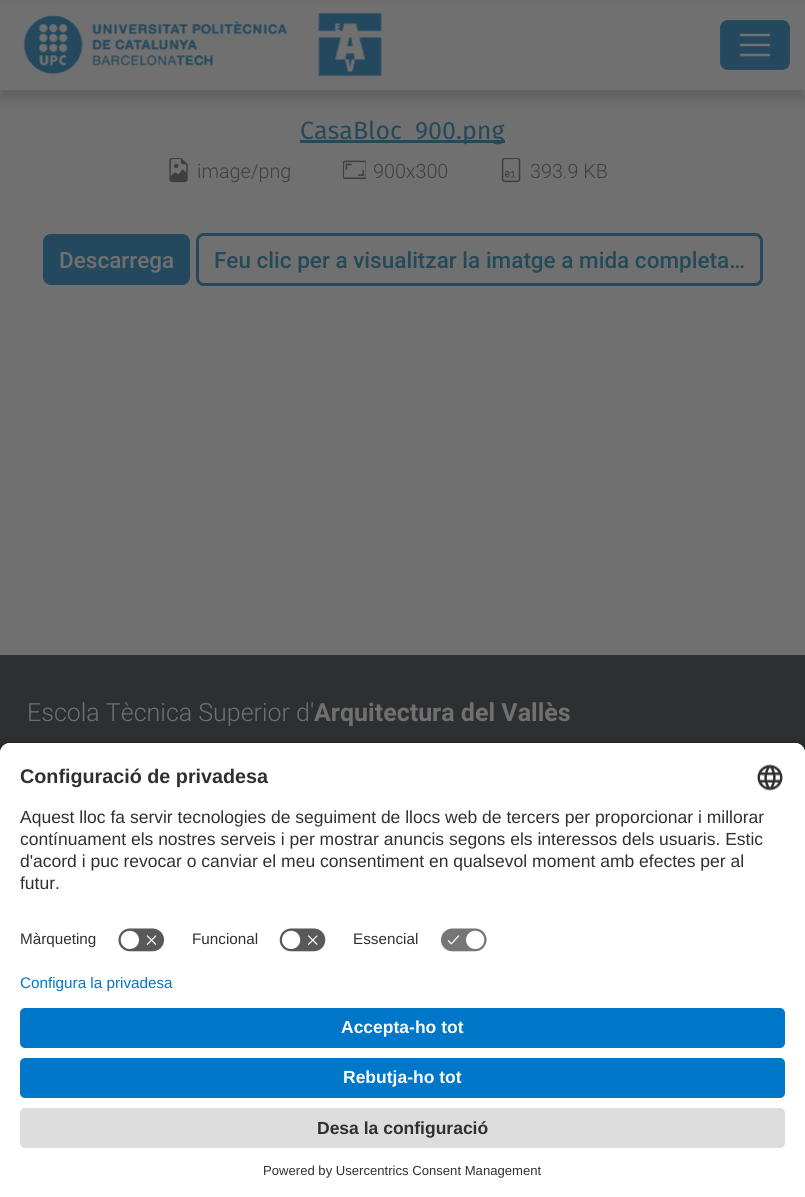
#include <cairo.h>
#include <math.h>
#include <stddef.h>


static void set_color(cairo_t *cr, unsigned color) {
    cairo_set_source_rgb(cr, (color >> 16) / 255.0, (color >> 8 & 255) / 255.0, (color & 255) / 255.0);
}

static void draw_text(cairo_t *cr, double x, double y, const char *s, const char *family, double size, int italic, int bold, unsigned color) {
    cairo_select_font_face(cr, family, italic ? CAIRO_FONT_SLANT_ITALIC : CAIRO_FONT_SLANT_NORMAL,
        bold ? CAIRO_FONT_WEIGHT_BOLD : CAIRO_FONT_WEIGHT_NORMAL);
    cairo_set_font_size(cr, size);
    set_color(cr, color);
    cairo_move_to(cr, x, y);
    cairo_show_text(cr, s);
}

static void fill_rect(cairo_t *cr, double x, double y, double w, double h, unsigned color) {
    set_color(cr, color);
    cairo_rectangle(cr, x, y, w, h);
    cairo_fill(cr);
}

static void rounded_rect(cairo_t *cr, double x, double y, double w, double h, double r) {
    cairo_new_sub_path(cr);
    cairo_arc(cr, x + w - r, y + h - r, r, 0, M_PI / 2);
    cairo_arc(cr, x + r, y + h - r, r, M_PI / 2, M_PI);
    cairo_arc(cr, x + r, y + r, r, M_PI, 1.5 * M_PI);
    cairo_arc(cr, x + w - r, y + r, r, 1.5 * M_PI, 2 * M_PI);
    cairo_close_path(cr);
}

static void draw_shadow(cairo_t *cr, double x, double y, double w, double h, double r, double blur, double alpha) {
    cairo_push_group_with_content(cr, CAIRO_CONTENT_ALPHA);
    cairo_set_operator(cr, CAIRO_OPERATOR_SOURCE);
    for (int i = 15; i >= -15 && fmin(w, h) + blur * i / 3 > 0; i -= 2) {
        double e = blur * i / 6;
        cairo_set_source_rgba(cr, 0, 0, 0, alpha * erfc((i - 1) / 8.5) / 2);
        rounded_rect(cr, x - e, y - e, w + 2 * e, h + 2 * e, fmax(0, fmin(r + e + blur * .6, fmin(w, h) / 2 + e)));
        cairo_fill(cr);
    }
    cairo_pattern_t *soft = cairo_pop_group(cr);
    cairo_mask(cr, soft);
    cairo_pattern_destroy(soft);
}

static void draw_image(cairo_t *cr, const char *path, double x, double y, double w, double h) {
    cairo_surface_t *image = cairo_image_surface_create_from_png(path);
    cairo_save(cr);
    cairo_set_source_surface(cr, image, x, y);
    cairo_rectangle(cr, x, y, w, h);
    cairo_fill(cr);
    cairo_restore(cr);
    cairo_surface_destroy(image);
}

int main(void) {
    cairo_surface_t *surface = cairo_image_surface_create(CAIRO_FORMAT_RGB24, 805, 1197);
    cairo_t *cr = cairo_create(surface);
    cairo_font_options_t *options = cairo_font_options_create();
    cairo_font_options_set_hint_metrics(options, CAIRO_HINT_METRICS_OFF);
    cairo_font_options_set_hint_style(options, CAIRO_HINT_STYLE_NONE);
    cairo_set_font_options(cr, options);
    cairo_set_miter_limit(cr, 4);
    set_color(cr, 0x707070);
    cairo_paint(cr);
    set_color(cr, 0x242424);
    draw_shadow(cr, 0, 9, 805, 90, 0, 5, 0.2);
    fill_rect(cr, 0, 4, 805, 86, 0x707070);
    draw_image(cr, "assets/img1.png", 23, 15, 265, 60);
    draw_image(cr, "assets/img2.png", 318, 13, 64, 64);
    set_color(cr, 0x24495E);
    rounded_rect(cr, 720, 20, 70, 50, 8);
    cairo_fill(cr);
    rounded_rect(cr, 720.5, 20.5, 69, 49, 7.5);
    cairo_set_source_rgba(cr, 0.439, 0.439, 0.439, 0.1);
    cairo_set_line_width(cr, 1);
    cairo_stroke(cr);
    cairo_new_path(cr);
    cairo_move_to(cr, 741, 35);
    cairo_line_to(cr, 769, 35);
    cairo_move_to(cr, 741, 45);
    cairo_line_to(cr, 769, 45);
    cairo_move_to(cr, 741, 55);
    cairo_line_to(cr, 769, 55);
    set_color(cr, 0x707070);
    cairo_set_line_width(cr, 2.5);
    cairo_set_line_cap(cr, CAIRO_LINE_CAP_ROUND);
    cairo_stroke(cr);
    fill_rect(cr, 300, 140, 205, 3, 0x244959);
    draw_text(cr, 300, 139, "CasaBloc_900.png", "Fira Sans", 25, 0, 0, 0x244959);
    draw_image(cr, "assets/img3.png", 169, 158, 19, 25);
    draw_text(cr, 197, 178, "image/png", "Roboto Light", 19.75, 0, 0, 0x3E3F40);
    draw_image(cr, "assets/img4.png", 343, 160, 23, 19);
    draw_text(cr, 373, 178, "900x300", "Roboto Light", 19.75, 0, 0, 0x3E3F40);
    draw_image(cr, "assets/img5.png", 501, 158, 20, 25);
    draw_text(cr, 530, 178, "393.9 KB", "Roboto Light", 19.75, 0, 0, 0x3E3F40);
    set_color(cr, 0x24495E);
    rounded_rect(cr, 43.5, 234.5, 146, 50, 7.5);
    cairo_fill_preserve(cr);
    cairo_set_line_width(cr, 1);
    cairo_set_line_cap(cr, CAIRO_LINE_CAP_BUTT);
    cairo_stroke(cr);
    draw_text(cr, 59, 268, "Descarrega", "Roboto Medium", 22.5, 0, 0, 0x707070);
    rounded_rect(cr, 197.5, 234.5, 564, 50, 6.5);
    set_color(cr, 0x24495E);
    cairo_set_line_width(cr, 3);
    cairo_stroke(cr);
    draw_text(cr, 214, 268, "Feu clic per a visualitzar la imatge a mida completa…", "Roboto Medium", 22.5, 0, 0, 0x244959);
    fill_rect(cr, 0, 655, 805, 98, 0x2E2F30);
    draw_text(cr, 27, 721, "Escola Tècnica Superior d'", "Roboto Light", 25, 0, 0, 0x707070);
    draw_text(cr, 314, 721, "Arquitectura del Vallès", "Roboto", 25, 0, 1, 0x707070);
    set_color(cr, 0x000000);
    draw_shadow(cr, 0, 746, 805, 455, 10, 4.5, 0.8);
    set_color(cr, 0xFFFFFF);
    cairo_new_path(cr);
    cairo_move_to(cr, 10, 743);
    cairo_line_to(cr, 795, 743);
    cairo_curve_to(cr, 800.5, 743, 805, 747.5, 805, 753);
    cairo_line_to(cr, 805, 975);
    cairo_line_to(cr, 0, 975);
    cairo_line_to(cr, 0, 753);
    cairo_curve_to(cr, 0, 747.5, 4.5, 743, 10, 743);
    cairo_close_path(cr);
    cairo_fill(cr);
    cairo_new_path(cr);
    cairo_move_to(cr, 10, 743);
    cairo_line_to(cr, 795, 743);
    cairo_curve_to(cr, 800.5, 743, 805, 747.5, 805, 753);
    cairo_line_to(cr, 805, 920);
    cairo_line_to(cr, 0, 920);
    cairo_line_to(cr, 0, 753);
    cairo_curve_to(cr, 0, 747.5, 4.5, 743, 10, 743);
    cairo_close_path(cr);
    cairo_fill(cr);
    draw_text(cr, 20, 783, "Configuració de privadesa", "Liberation Sans", 19.75, 0, 1, 0x303030);
    draw_image(cr, "assets/img6.png", 757, 764, 26, 27);
    draw_text(cr, 20, 823, "Aquest lloc fa servir tecnologies de seguiment de llocs web de tercers per proporcionar i millorar", "Liberation Sans", 17.5, 0, 0, 0x303030);
    draw_text(cr, 20, 845, "contínuament els nostres serveis i per mostrar anuncis segons els interessos dels usuaris. Estic", "Liberation Sans", 17.5, 0, 0, 0x303030);
    draw_text(cr, 20, 867, "d'acord i puc revocar o canviar el meu consentiment en qualsevol moment amb efectes per al", "Liberation Sans", 17.5, 0, 0, 0x303030);
    draw_text(cr, 20, 889, "futur.", "Liberation Sans", 17.5, 0, 0, 0x303030);
    draw_text(cr, 20, 944, "Màrqueting", "Liberation Sans", 15.25, 0, 0, 0x303030);
    draw_image(cr, "assets/img7.png", 117, 927, 48, 25);
    draw_text(cr, 192, 944, "Funcional", "Liberation Sans", 15.25, 0, 0, 0x303030);
    draw_image(cr, "assets/img8.png", 279, 928, 47, 24);
    draw_text(cr, 353, 944, "Essencial", "Liberation Sans", 15.25, 0, 0, 0x303030);
    draw_image(cr, "assets/img9.png", 440, 928, 48, 24);
    fill_rect(cr, 0, 975, 805, 222, 0xFFFFFF);
    draw_text(cr, 20, 988, "Configura la privadesa", "Liberation Sans", 15.25, 0, 0, 0x0077C8);
    rounded_rect(cr, 20, 1008, 765, 40, 5);
    cairo_fill(cr);
    draw_text(cr, 341, 1033, "Accepta-ho tot", "Liberation Sans", 17.5, 0, 1, 0xFAFAFA);
    set_color(cr, 0x0077C8);
    rounded_rect(cr, 20, 1058, 765, 40, 5);
    cairo_fill(cr);
    draw_text(cr, 343, 1083, "Rebutja-ho tot", "Liberation Sans", 17.5, 0, 1, 0xFAFAFA);
    set_color(cr, 0xDDDDDD);
    rounded_rect(cr, 20, 1108, 765, 40, 5);
    cairo_fill(cr);
    draw_text(cr, 317, 1134, "Desa la configuració", "Liberation Sans", 17.5, 0, 1, 0x303030);
    draw_text(cr, 263, 1175, "Powered by Usercentrics Consent Management", "Liberation Sans", 13.1, 0, 0, 0x303030);
    cairo_surface_write_to_png(surface, "output.png");
    cairo_font_options_destroy(options);
    cairo_destroy(cr);
    cairo_surface_destroy(surface);
    return 0;
}
